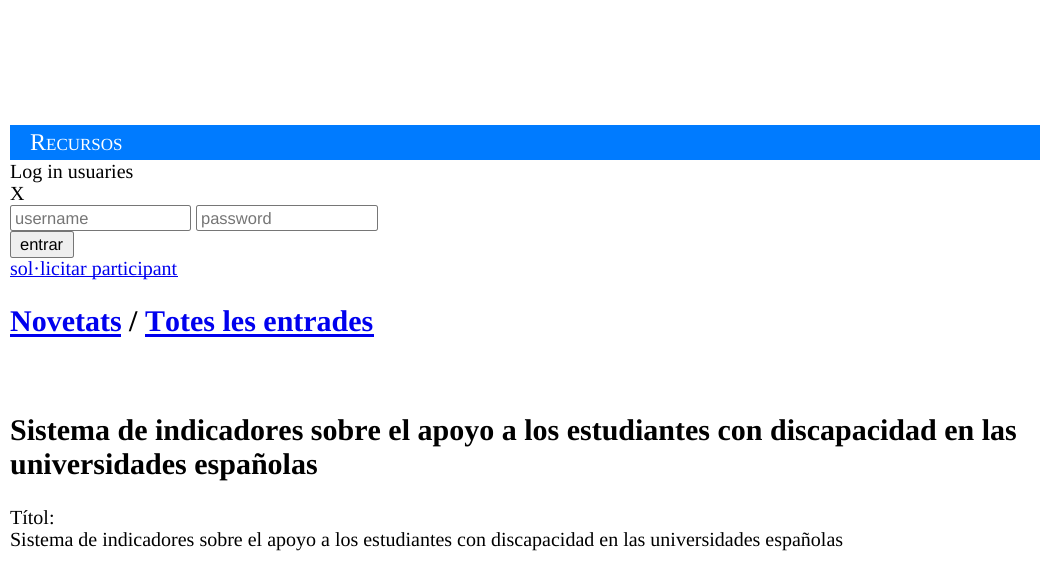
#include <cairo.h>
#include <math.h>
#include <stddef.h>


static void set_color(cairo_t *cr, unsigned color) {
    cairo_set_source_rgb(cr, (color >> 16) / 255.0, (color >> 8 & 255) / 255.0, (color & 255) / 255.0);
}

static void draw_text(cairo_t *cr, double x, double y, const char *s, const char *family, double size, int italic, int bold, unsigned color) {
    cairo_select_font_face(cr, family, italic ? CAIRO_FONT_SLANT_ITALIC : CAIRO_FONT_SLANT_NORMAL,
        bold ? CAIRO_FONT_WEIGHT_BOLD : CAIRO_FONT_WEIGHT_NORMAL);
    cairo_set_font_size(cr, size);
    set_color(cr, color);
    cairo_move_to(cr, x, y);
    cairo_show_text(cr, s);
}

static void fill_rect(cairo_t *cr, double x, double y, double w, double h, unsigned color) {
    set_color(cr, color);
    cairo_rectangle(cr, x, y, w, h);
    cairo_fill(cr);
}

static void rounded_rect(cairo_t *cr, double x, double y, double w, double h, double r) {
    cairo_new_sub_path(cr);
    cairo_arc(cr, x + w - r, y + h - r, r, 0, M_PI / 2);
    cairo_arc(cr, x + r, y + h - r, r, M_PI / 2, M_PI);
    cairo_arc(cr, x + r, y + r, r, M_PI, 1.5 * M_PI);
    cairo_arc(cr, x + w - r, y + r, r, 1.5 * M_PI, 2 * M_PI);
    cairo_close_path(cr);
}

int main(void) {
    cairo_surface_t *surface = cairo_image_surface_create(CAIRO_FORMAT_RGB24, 1049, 564);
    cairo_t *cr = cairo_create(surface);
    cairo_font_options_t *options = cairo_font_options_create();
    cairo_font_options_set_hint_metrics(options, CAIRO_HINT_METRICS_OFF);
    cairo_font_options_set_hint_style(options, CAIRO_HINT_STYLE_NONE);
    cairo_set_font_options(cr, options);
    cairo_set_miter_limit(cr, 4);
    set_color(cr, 0xFFFFFF);
    cairo_paint(cr);
    fill_rect(cr, 10, 125, 1030, 35, 0x007BFF);
    draw_text(cr, 30, 150, "R", "Liberation Serif", 24, 0, 0, 0xFFFFFF);
    draw_text(cr, 46, 150, "ECURSOS", "Liberation Serif", 17, 0, 0, 0xFFFFFF);
    draw_text(cr, 10, 178, "Log in usuaries", "Liberation Serif", 20, 0, 0, 0x000000);
    draw_text(cr, 10, 200, "X", "Liberation Serif", 20, 0, 0, 0x000000);
    rounded_rect(cr, 10.5, 205.5, 180, 25, 2);
    set_color(cr, 0x767676);
    cairo_set_line_width(cr, 1);
    cairo_stroke(cr);
    draw_text(cr, 15, 224, "username", "Liberation Sans", 16.5, 0, 0, 0x757575);
    rounded_rect(cr, 196.5, 205.5, 181, 25, 2);
    set_color(cr, 0x767676);
    cairo_stroke(cr);
    draw_text(cr, 201, 224, "password", "Liberation Sans", 16.5, 0, 0, 0x757575);
    set_color(cr, 0xEFEFEF);
    rounded_rect(cr, 10.5, 231.5, 63, 26, 2);
    cairo_fill_preserve(cr);
    set_color(cr, 0x767676);
    cairo_stroke(cr);
    draw_text(cr, 20, 250, "entrar", "Liberation Sans", 16.5, 0, 0, 0x000000);
    fill_rect(cr, 10, 276, 168, 1, 0x0000EE);
    draw_text(cr, 10, 275, "sol·licitar participant", "Liberation Serif", 20, 0, 0, 0x0000EE);
    draw_text(cr, 10, 331, "Novetats", "Liberation Serif", 30, 0, 1, 0x0000EE);
    fill_rect(cr, 10, 334, 111, 3, 0x0000EE);
    draw_text(cr, 129, 331, "/", "Liberation Serif", 30, 0, 1, 0x000000);
    draw_text(cr, 145, 331, "Totes les entrades", "Liberation Serif", 30, 0, 1, 0x0000EE);
    fill_rect(cr, 145, 334, 229, 3, 0x0000EE);
    draw_text(cr, 10, 440, "Sistema de indicadores sobre el apoyo a los estudiantes con discapacidad en las", "Liberation Serif", 30, 0, 1, 0x000000);
    draw_text(cr, 10, 474, "universidades españolas", "Liberation Serif", 30, 0, 1, 0x000000);
    draw_text(cr, 10, 524, "Títol:", "Liberation Serif", 20, 0, 0, 0x000000);
    draw_text(cr, 10, 546, "Sistema de indicadores sobre el apoyo a los estudiantes con discapacidad en las universidades españolas", "Liberation Serif", 20, 0, 0, 0x000000);
    cairo_surface_write_to_png(surface, "output.png");
    cairo_font_options_destroy(options);
    cairo_destroy(cr);
    cairo_surface_destroy(surface);
    return 0;
}
